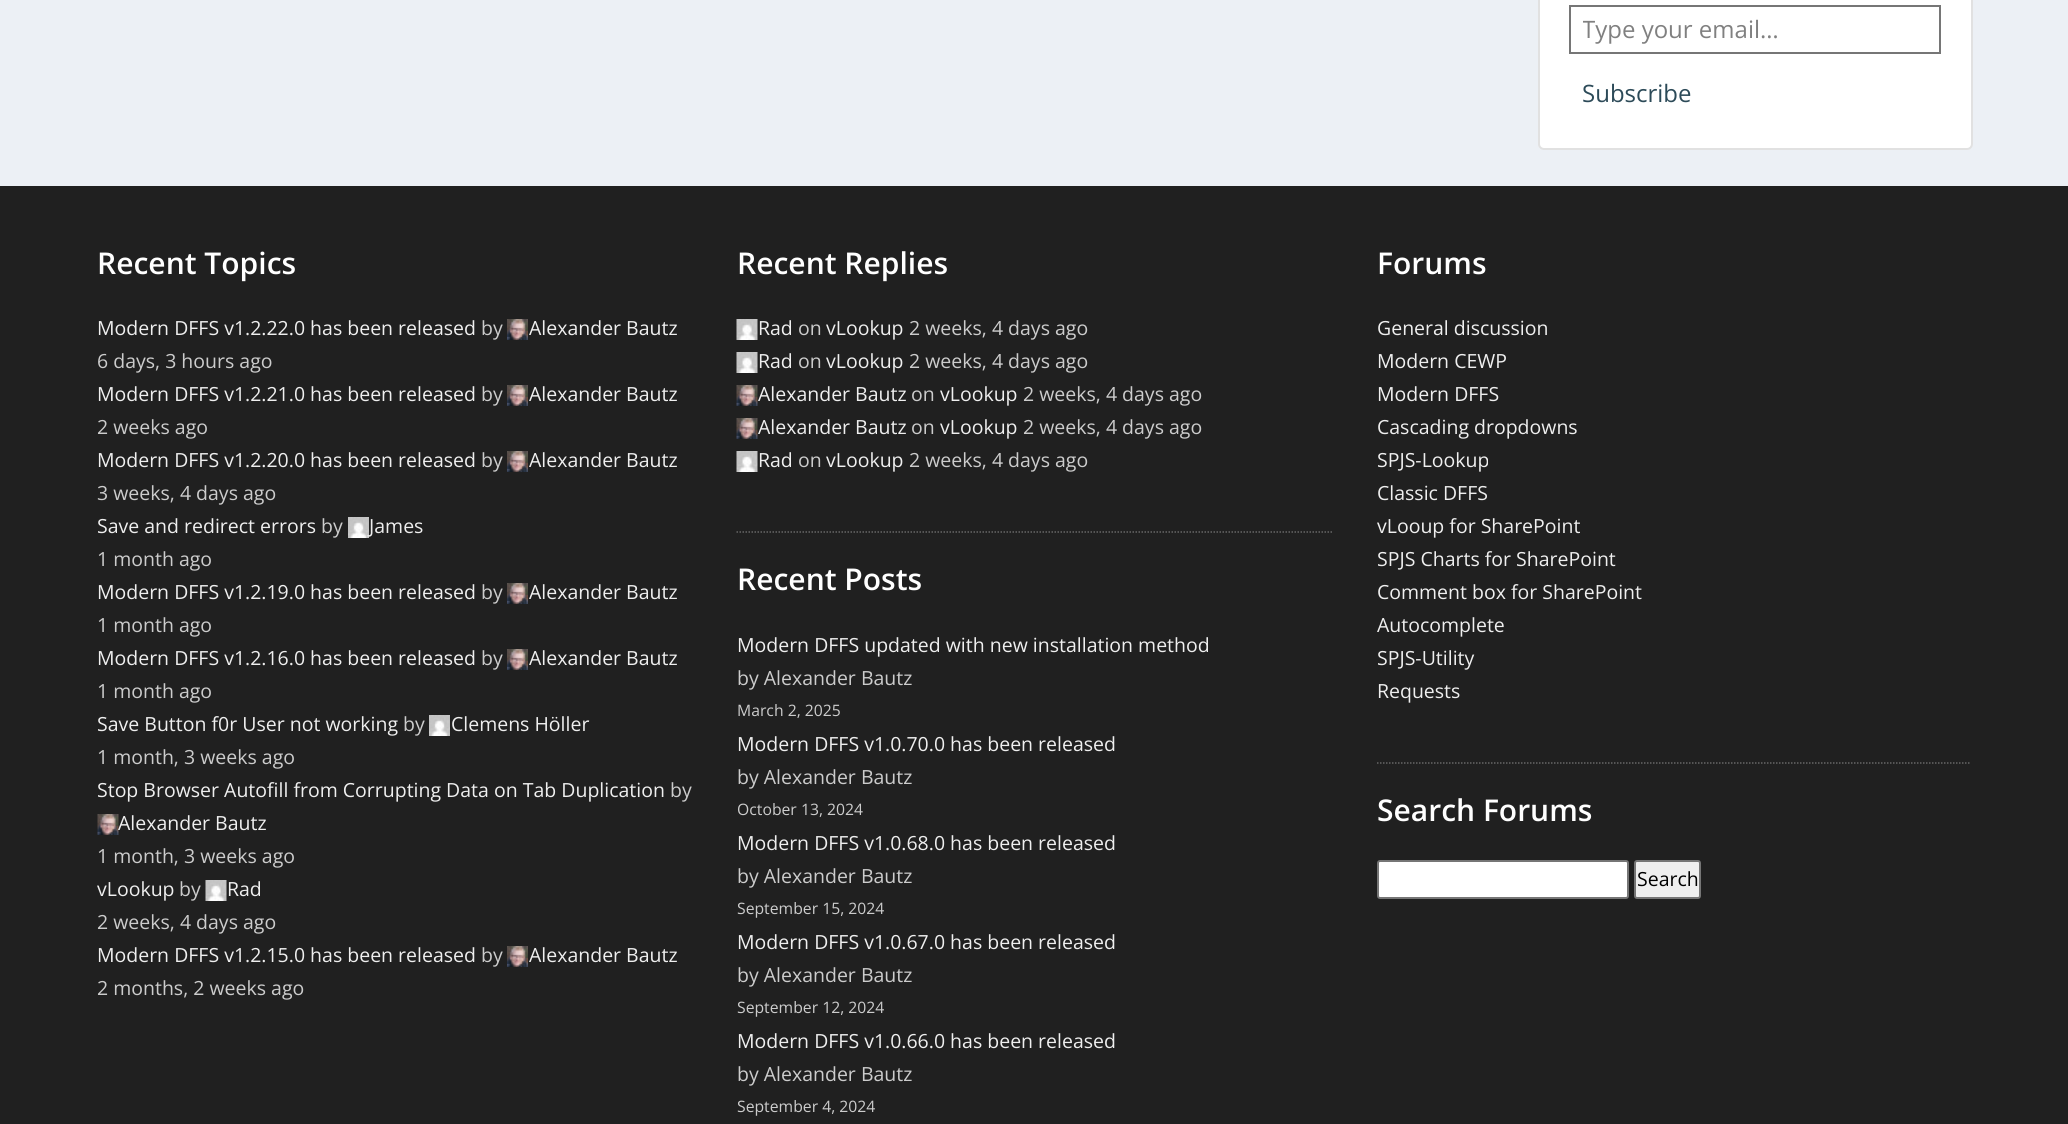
#include <cairo.h>
#include <math.h>
#include <stddef.h>


static void set_color(cairo_t *cr, unsigned color) {
    cairo_set_source_rgb(cr, (color >> 16) / 255.0, (color >> 8 & 255) / 255.0, (color & 255) / 255.0);
}

static void draw_text(cairo_t *cr, double x, double y, const char *s, const char *family, double size, int italic, int bold, unsigned color) {
    cairo_select_font_face(cr, family, italic ? CAIRO_FONT_SLANT_ITALIC : CAIRO_FONT_SLANT_NORMAL,
        bold ? CAIRO_FONT_WEIGHT_BOLD : CAIRO_FONT_WEIGHT_NORMAL);
    cairo_set_font_size(cr, size);
    set_color(cr, color);
    cairo_move_to(cr, x, y);
    cairo_show_text(cr, s);
}

static void fill_rect(cairo_t *cr, double x, double y, double w, double h, unsigned color) {
    set_color(cr, color);
    cairo_rectangle(cr, x, y, w, h);
    cairo_fill(cr);
}

static void rounded_rect(cairo_t *cr, double x, double y, double w, double h, double r) {
    cairo_new_sub_path(cr);
    cairo_arc(cr, x + w - r, y + h - r, r, 0, M_PI / 2);
    cairo_arc(cr, x + r, y + h - r, r, M_PI / 2, M_PI);
    cairo_arc(cr, x + r, y + r, r, M_PI, 1.5 * M_PI);
    cairo_arc(cr, x + w - r, y + r, r, 1.5 * M_PI, 2 * M_PI);
    cairo_close_path(cr);
}

static void draw_image(cairo_t *cr, const char *path, double x, double y, double w, double h) {
    cairo_surface_t *image = cairo_image_surface_create_from_png(path);
    cairo_save(cr);
    cairo_set_source_surface(cr, image, x, y);
    cairo_rectangle(cr, x, y, w, h);
    cairo_fill(cr);
    cairo_restore(cr);
    cairo_surface_destroy(image);
}

int main(void) {
    cairo_surface_t *surface = cairo_image_surface_create(CAIRO_FORMAT_RGB24, 2068, 1124);
    cairo_t *cr = cairo_create(surface);
    cairo_font_options_t *options = cairo_font_options_create();
    cairo_font_options_set_hint_metrics(options, CAIRO_HINT_METRICS_OFF);
    cairo_font_options_set_hint_style(options, CAIRO_HINT_STYLE_NONE);
    cairo_set_font_options(cr, options);
    cairo_set_miter_limit(cr, 4);
    set_color(cr, 0xECF0F5);
    cairo_paint(cr);
    set_color(cr, 0xFFFFFF);
    rounded_rect(cr, 1538, -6, 435, 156, 6);
    cairo_fill(cr);
    rounded_rect(cr, 1539, -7, 433, 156, 5);
    cairo_set_source_rgba(cr, 0, 0, 0, 0.12);
    cairo_stroke(cr);
    cairo_rectangle(cr, 1570, 6, 370, 47);
    set_color(cr, 0x767676);
    cairo_stroke(cr);
    cairo_save(cr);
    cairo_rectangle(cr, 1583, 12, 345, 33);
    cairo_clip(cr);
    draw_text(cr, 1582, 38, "Type your email…", "Open Sans", 24, 0, 0, 0x808080);
    cairo_restore(cr);
    draw_text(cr, 1582, 102, "Subscribe", "Open Sans", 24, 0, 0, 0x2C4A58);
    fill_rect(cr, 0, 186, 2068, 938, 0x202020);
    draw_text(cr, 97, 274, "Recent Topics", "Open Sans SemiBold", 30, 0, 0, 0xFFFFFF);
    draw_text(cr, 97, 335, "Modern DFFS v1.2.22.0 has been released", "Open Sans", 19.5, 0, 0, 0xEFEFEF);
    draw_text(cr, 481, 335, "by", "Open Sans", 19.5, 0, 0, 0xCCCCCC);
    draw_image(cr, "assets/img1.png", 507, 319, 21, 21);
    draw_text(cr, 529, 335, "Alexander Bautz", "Open Sans", 19.5, 0, 0, 0xEFEFEF);
    draw_text(cr, 97, 368, "6 days, 3 hours ago", "Open Sans", 19.5, 0, 0, 0xCCCCCC);
    draw_text(cr, 97, 401, "Modern DFFS v1.2.21.0 has been released", "Open Sans", 19.5, 0, 0, 0xEFEFEF);
    draw_text(cr, 481, 401, "by", "Open Sans", 19.5, 0, 0, 0xCCCCCC);
    draw_image(cr, "assets/img1.png", 507, 385, 21, 21);
    draw_text(cr, 529, 401, "Alexander Bautz", "Open Sans", 19.5, 0, 0, 0xEFEFEF);
    draw_text(cr, 97, 434, "2 weeks ago", "Open Sans", 19.5, 0, 0, 0xCCCCCC);
    draw_text(cr, 97, 467, "Modern DFFS v1.2.20.0 has been released", "Open Sans", 19.5, 0, 0, 0xEFEFEF);
    draw_text(cr, 481, 467, "by", "Open Sans", 19.5, 0, 0, 0xCCCCCC);
    draw_image(cr, "assets/img1.png", 507, 451, 21, 21);
    draw_text(cr, 529, 467, "Alexander Bautz", "Open Sans", 19.5, 0, 0, 0xEFEFEF);
    draw_text(cr, 97, 500, "3 weeks, 4 days ago", "Open Sans", 19.5, 0, 0, 0xCCCCCC);
    draw_text(cr, 97, 533, "Save and redirect errors", "Open Sans", 19.5, 0, 0, 0xEFEFEF);
    draw_text(cr, 321, 533, "by", "Open Sans", 19.5, 0, 0, 0xCCCCCC);
    draw_image(cr, "assets/img2.png", 348, 517, 21, 21);
    draw_text(cr, 369, 533, "James", "Open Sans", 19.5, 0, 0, 0xEFEFEF);
    draw_text(cr, 97, 566, "1 month ago", "Open Sans", 19.5, 0, 0, 0xCCCCCC);
    draw_text(cr, 97, 599, "Modern DFFS v1.2.19.0 has been released", "Open Sans", 19.5, 0, 0, 0xEFEFEF);
    draw_text(cr, 481, 599, "by", "Open Sans", 19.5, 0, 0, 0xCCCCCC);
    draw_image(cr, "assets/img1.png", 507, 583, 21, 21);
    draw_text(cr, 529, 599, "Alexander Bautz", "Open Sans", 19.5, 0, 0, 0xEFEFEF);
    draw_text(cr, 97, 632, "1 month ago", "Open Sans", 19.5, 0, 0, 0xCCCCCC);
    draw_text(cr, 97, 665, "Modern DFFS v1.2.16.0 has been released", "Open Sans", 19.5, 0, 0, 0xEFEFEF);
    draw_text(cr, 481, 665, "by", "Open Sans", 19.5, 0, 0, 0xCCCCCC);
    draw_image(cr, "assets/img1.png", 507, 649, 21, 21);
    draw_text(cr, 529, 665, "Alexander Bautz", "Open Sans", 19.5, 0, 0, 0xEFEFEF);
    draw_text(cr, 97, 698, "1 month ago", "Open Sans", 19.5, 0, 0, 0xCCCCCC);
    draw_text(cr, 97, 731, "Save Button f0r User not working", "Open Sans", 19.5, 0, 0, 0xEFEFEF);
    draw_text(cr, 403, 731, "by", "Open Sans", 19.5, 0, 0, 0xCCCCCC);
    draw_image(cr, "assets/img2.png", 429, 715, 21, 21);
    draw_text(cr, 451, 731, "Clemens Höller", "Open Sans", 19.5, 0, 0, 0xEFEFEF);
    draw_text(cr, 97, 764, "1 month, 3 weeks ago", "Open Sans", 19.5, 0, 0, 0xCCCCCC);
    draw_text(cr, 97, 797, "Stop Browser Autofill from Corrupting Data on Tab Duplication", "Open Sans", 19.5, 0, 0, 0xEFEFEF);
    draw_text(cr, 670, 797, "by", "Open Sans", 19.5, 0, 0, 0xCCCCCC);
    draw_image(cr, "assets/img3.png", 97, 814, 22, 21);
    draw_text(cr, 118, 830, "Alexander Bautz", "Open Sans", 19.5, 0, 0, 0xEFEFEF);
    draw_text(cr, 97, 863, "1 month, 3 weeks ago", "Open Sans", 19.5, 0, 0, 0xCCCCCC);
    draw_text(cr, 97, 896, "vLookup", "Open Sans", 19.5, 0, 0, 0xEFEFEF);
    draw_text(cr, 179, 896, "by", "Open Sans", 19.5, 0, 0, 0xCCCCCC);
    draw_image(cr, "assets/img4.png", 205, 880, 22, 21);
    draw_text(cr, 227, 896, "Rad", "Open Sans", 19.5, 0, 0, 0xEFEFEF);
    draw_text(cr, 97, 929, "2 weeks, 4 days ago", "Open Sans", 19.5, 0, 0, 0xCCCCCC);
    draw_text(cr, 97, 962, "Modern DFFS v1.2.15.0 has been released", "Open Sans", 19.5, 0, 0, 0xEFEFEF);
    draw_text(cr, 481, 962, "by", "Open Sans", 19.5, 0, 0, 0xCCCCCC);
    draw_image(cr, "assets/img1.png", 507, 946, 21, 21);
    draw_text(cr, 529, 962, "Alexander Bautz", "Open Sans", 19.5, 0, 0, 0xEFEFEF);
    draw_text(cr, 97, 995, "2 months, 2 weeks ago", "Open Sans", 19.5, 0, 0, 0xCCCCCC);
    cairo_new_path(cr);
    cairo_move_to(cr, 736.5, 532);
    cairo_line_to(cr, 1332, 532);
    set_color(cr, 0x666666);
    cairo_set_line_width(cr, 1.5);
    cairo_set_dash(cr, (double[]){1.5, 1.5}, 2, 0);
    cairo_stroke(cr);
    draw_text(cr, 737, 274, "Recent Replies", "Open Sans SemiBold", 30, 0, 0, 0xFFFFFF);
    draw_image(cr, "assets/img5.png", 736, 319, 22, 21);
    draw_text(cr, 758, 335, "Rad", "Open Sans", 19.5, 0, 0, 0xEFEFEF);
    draw_text(cr, 798, 335, "on", "Open Sans", 19.5, 0, 0, 0xCCCCCC);
    draw_text(cr, 826, 335, "vLookup", "Open Sans", 19.5, 0, 0, 0xEFEFEF);
    draw_text(cr, 909, 335, "2 weeks, 4 days ago", "Open Sans", 19.5, 0, 0, 0xCCCCCC);
    draw_image(cr, "assets/img5.png", 736, 352, 22, 21);
    draw_text(cr, 758, 368, "Rad", "Open Sans", 19.5, 0, 0, 0xEFEFEF);
    draw_text(cr, 798, 368, "on", "Open Sans", 19.5, 0, 0, 0xCCCCCC);
    draw_text(cr, 826, 368, "vLookup", "Open Sans", 19.5, 0, 0, 0xEFEFEF);
    draw_text(cr, 909, 368, "2 weeks, 4 days ago", "Open Sans", 19.5, 0, 0, 0xCCCCCC);
    draw_image(cr, "assets/img6.png", 736, 385, 22, 21);
    draw_text(cr, 758, 401, "Alexander Bautz", "Open Sans", 19.5, 0, 0, 0xEFEFEF);
    draw_text(cr, 911, 401, "on", "Open Sans", 19.5, 0, 0, 0xCCCCCC);
    draw_text(cr, 940, 401, "vLookup", "Open Sans", 19.5, 0, 0, 0xEFEFEF);
    draw_text(cr, 1023, 401, "2 weeks, 4 days ago", "Open Sans", 19.5, 0, 0, 0xCCCCCC);
    draw_image(cr, "assets/img6.png", 736, 418, 22, 21);
    draw_text(cr, 758, 434, "Alexander Bautz", "Open Sans", 19.5, 0, 0, 0xEFEFEF);
    draw_text(cr, 911, 434, "on", "Open Sans", 19.5, 0, 0, 0xCCCCCC);
    draw_text(cr, 940, 434, "vLookup", "Open Sans", 19.5, 0, 0, 0xEFEFEF);
    draw_text(cr, 1023, 434, "2 weeks, 4 days ago", "Open Sans", 19.5, 0, 0, 0xCCCCCC);
    draw_image(cr, "assets/img5.png", 736, 451, 22, 21);
    draw_text(cr, 758, 467, "Rad", "Open Sans", 19.5, 0, 0, 0xEFEFEF);
    draw_text(cr, 798, 467, "on", "Open Sans", 19.5, 0, 0, 0xCCCCCC);
    draw_text(cr, 826, 467, "vLookup", "Open Sans", 19.5, 0, 0, 0xEFEFEF);
    draw_text(cr, 909, 467, "2 weeks, 4 days ago", "Open Sans", 19.5, 0, 0, 0xCCCCCC);
    draw_text(cr, 737, 590, "Recent Posts", "Open Sans SemiBold", 30, 0, 0, 0xFFFFFF);
    draw_text(cr, 737, 652, "Modern DFFS updated with new installation method", "Open Sans", 19.5, 0, 0, 0xEFEFEF);
    draw_text(cr, 737, 685, "by Alexander Bautz", "Open Sans", 19.5, 0, 0, 0xCCCCCC);
    draw_text(cr, 737, 716, "March 2, 2025", "Open Sans", 15.75, 0, 0, 0xCCCCCC);
    draw_text(cr, 737, 751, "Modern DFFS v1.0.70.0 has been released", "Open Sans", 19.5, 0, 0, 0xEFEFEF);
    draw_text(cr, 737, 784, "by Alexander Bautz", "Open Sans", 19.5, 0, 0, 0xCCCCCC);
    draw_text(cr, 737, 815, "October 13, 2024", "Open Sans", 15.75, 0, 0, 0xCCCCCC);
    draw_text(cr, 737, 850, "Modern DFFS v1.0.68.0 has been released", "Open Sans", 19.5, 0, 0, 0xEFEFEF);
    draw_text(cr, 737, 883, "by Alexander Bautz", "Open Sans", 19.5, 0, 0, 0xCCCCCC);
    draw_text(cr, 737, 914, "September 15, 2024", "Open Sans", 15.75, 0, 0, 0xCCCCCC);
    draw_text(cr, 737, 949, "Modern DFFS v1.0.67.0 has been released", "Open Sans", 19.5, 0, 0, 0xEFEFEF);
    draw_text(cr, 737, 982, "by Alexander Bautz", "Open Sans", 19.5, 0, 0, 0xCCCCCC);
    draw_text(cr, 737, 1013, "September 12, 2024", "Open Sans", 15.75, 0, 0, 0xCCCCCC);
    draw_text(cr, 737, 1048, "Modern DFFS v1.0.66.0 has been released", "Open Sans", 19.5, 0, 0, 0xEFEFEF);
    draw_text(cr, 737, 1081, "by Alexander Bautz", "Open Sans", 19.5, 0, 0, 0xCCCCCC);
    draw_text(cr, 737, 1112, "September 4, 2024", "Open Sans", 15.75, 0, 0, 0xCCCCCC);
    cairo_new_path(cr);
    cairo_move_to(cr, 1377, 763);
    cairo_line_to(cr, 1971, 763);
    set_color(cr, 0x666666);
    cairo_stroke(cr);
    draw_text(cr, 1377, 274, "Forums", "Open Sans SemiBold", 30, 0, 0, 0xFFFFFF);
    draw_text(cr, 1377, 335, "General discussion", "Open Sans", 19.5, 0, 0, 0xEFEFEF);
    draw_text(cr, 1377, 368, "Modern CEWP", "Open Sans", 19.5, 0, 0, 0xEFEFEF);
    draw_text(cr, 1377, 401, "Modern DFFS", "Open Sans", 19.5, 0, 0, 0xEFEFEF);
    draw_text(cr, 1377, 434, "Cascading dropdowns", "Open Sans", 19.5, 0, 0, 0xEFEFEF);
    draw_text(cr, 1377, 467, "SPJS-Lookup", "Open Sans", 19.5, 0, 0, 0xEFEFEF);
    draw_text(cr, 1377, 500, "Classic DFFS", "Open Sans", 19.5, 0, 0, 0xEFEFEF);
    draw_text(cr, 1377, 533, "vLooup for SharePoint", "Open Sans", 19.5, 0, 0, 0xEFEFEF);
    draw_text(cr, 1377, 566, "SPJS Charts for SharePoint", "Open Sans", 19.5, 0, 0, 0xEFEFEF);
    draw_text(cr, 1377, 599, "Comment box for SharePoint", "Open Sans", 19.5, 0, 0, 0xEFEFEF);
    draw_text(cr, 1377, 632, "Autocomplete", "Open Sans", 19.5, 0, 0, 0xEFEFEF);
    draw_text(cr, 1377, 665, "SPJS-Utility", "Open Sans", 19.5, 0, 0, 0xEFEFEF);
    draw_text(cr, 1377, 698, "Requests", "Open Sans", 19.5, 0, 0, 0xEFEFEF);
    draw_text(cr, 1377, 821, "Search Forums", "Open Sans SemiBold", 30, 0, 0, 0xFFFFFF);
    rounded_rect(cr, 1378, 861, 250, 37, 2);
    cairo_fill_preserve(cr);
    set_color(cr, 0x767676);
    cairo_set_line_width(cr, 2);
    cairo_set_dash(cr, NULL, 0, 0);
    cairo_stroke(cr);
    set_color(cr, 0xEFEFEF);
    rounded_rect(cr, 1635, 861, 65, 37, 2);
    cairo_fill_preserve(cr);
    set_color(cr, 0x767676);
    cairo_stroke(cr);
    draw_text(cr, 1637, 886, "Search", "Open Sans", 19.5, 0, 0, 0x000000);
    cairo_surface_write_to_png(surface, "output.png");
    cairo_font_options_destroy(options);
    cairo_destroy(cr);
    cairo_surface_destroy(surface);
    return 0;
}
